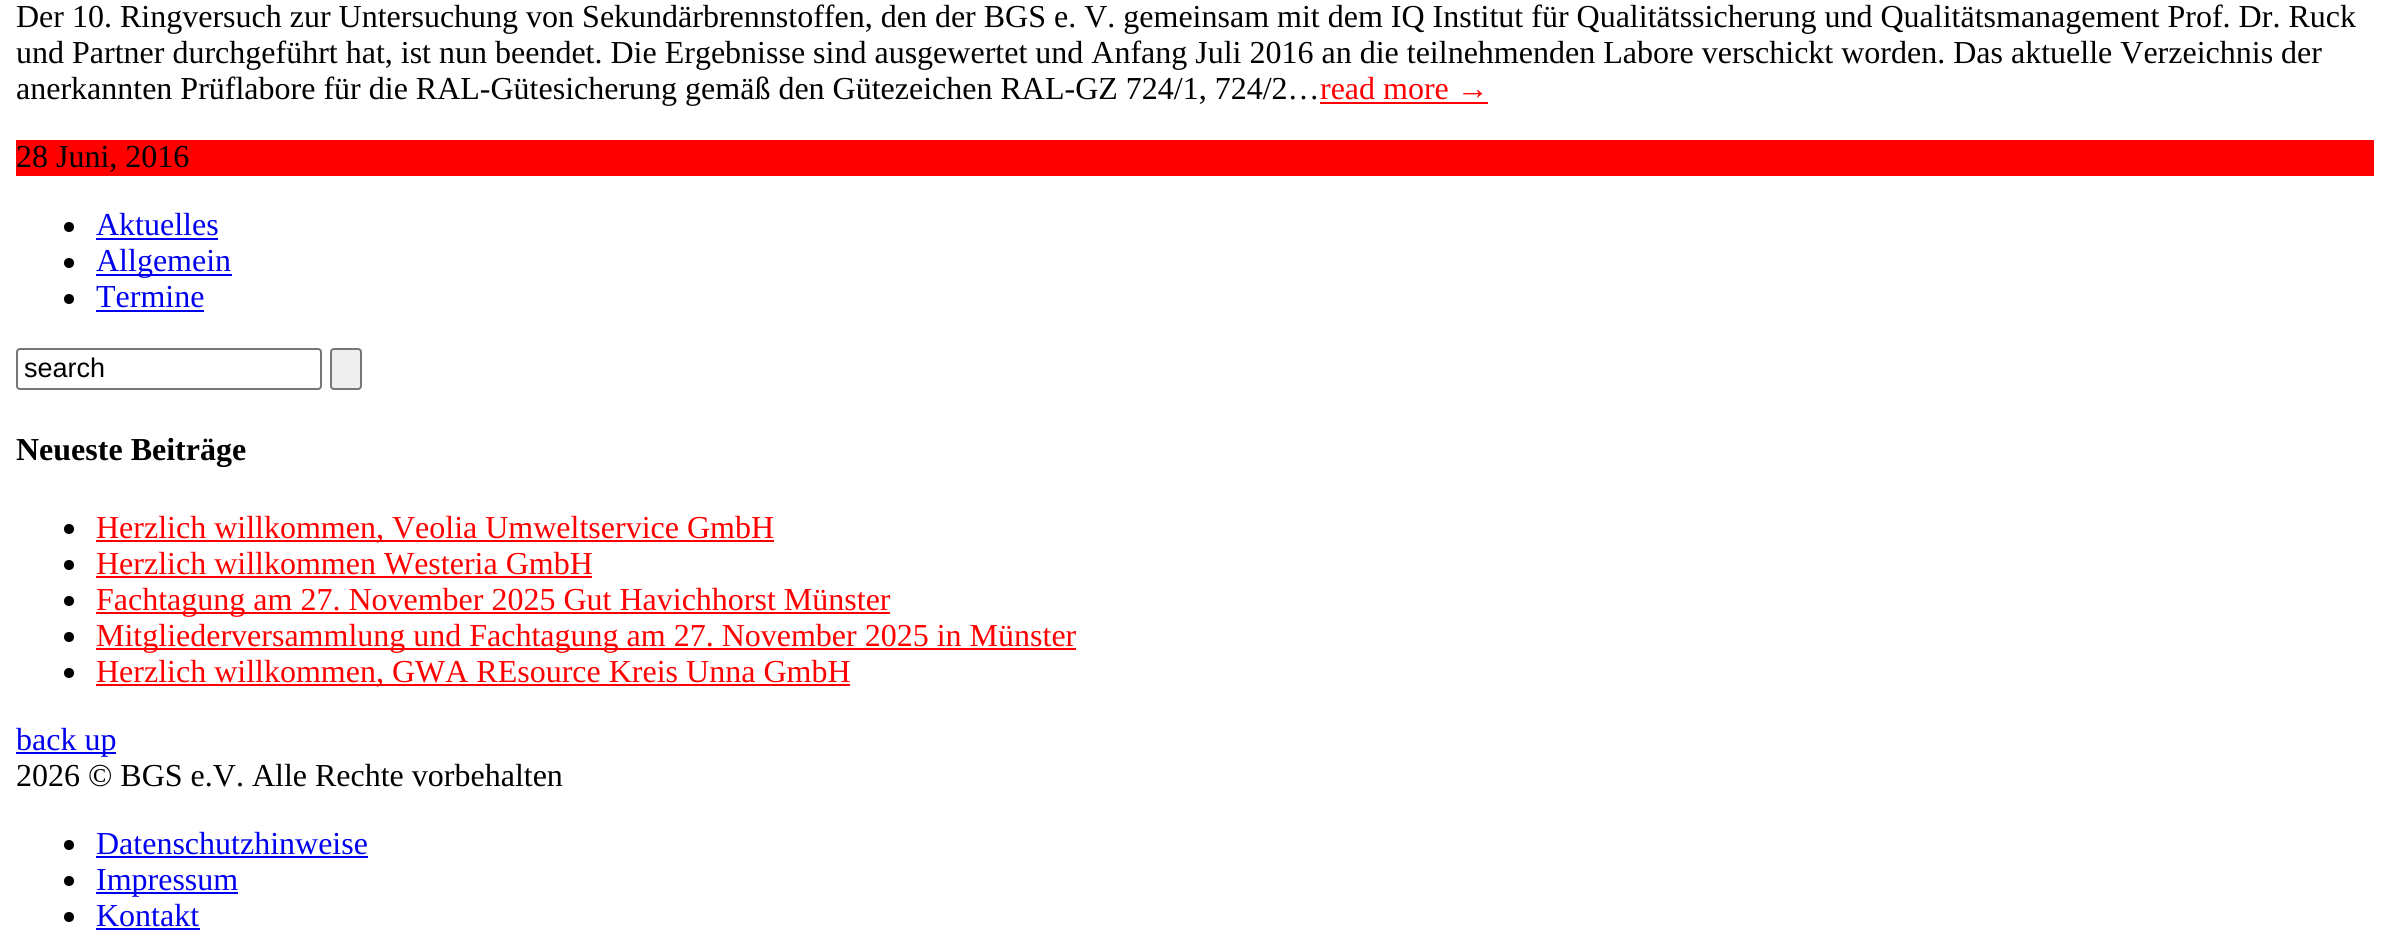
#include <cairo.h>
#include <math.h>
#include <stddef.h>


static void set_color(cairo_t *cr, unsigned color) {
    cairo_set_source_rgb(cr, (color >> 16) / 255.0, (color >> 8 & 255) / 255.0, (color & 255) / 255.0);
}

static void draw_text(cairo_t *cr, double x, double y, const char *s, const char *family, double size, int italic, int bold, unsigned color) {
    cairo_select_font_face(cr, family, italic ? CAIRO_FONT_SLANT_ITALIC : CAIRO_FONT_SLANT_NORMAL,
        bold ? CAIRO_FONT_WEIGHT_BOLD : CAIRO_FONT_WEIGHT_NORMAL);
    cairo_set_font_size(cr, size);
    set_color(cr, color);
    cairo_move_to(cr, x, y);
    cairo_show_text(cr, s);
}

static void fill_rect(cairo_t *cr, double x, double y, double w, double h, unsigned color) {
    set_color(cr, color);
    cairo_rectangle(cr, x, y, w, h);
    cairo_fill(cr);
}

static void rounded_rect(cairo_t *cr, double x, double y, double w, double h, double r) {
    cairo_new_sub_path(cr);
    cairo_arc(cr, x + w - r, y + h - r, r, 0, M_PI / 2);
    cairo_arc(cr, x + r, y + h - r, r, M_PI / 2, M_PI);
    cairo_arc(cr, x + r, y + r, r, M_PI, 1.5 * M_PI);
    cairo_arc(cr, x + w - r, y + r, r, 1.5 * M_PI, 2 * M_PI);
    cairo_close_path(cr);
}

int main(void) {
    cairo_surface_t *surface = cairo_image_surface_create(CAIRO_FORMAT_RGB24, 2390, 936);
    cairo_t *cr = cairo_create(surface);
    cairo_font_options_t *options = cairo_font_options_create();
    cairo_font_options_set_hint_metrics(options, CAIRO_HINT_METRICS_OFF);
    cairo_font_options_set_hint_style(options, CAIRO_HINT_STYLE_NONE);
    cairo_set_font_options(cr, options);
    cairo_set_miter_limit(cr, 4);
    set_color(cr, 0xFFFFFF);
    cairo_paint(cr);
    draw_text(cr, 16, 27, "Der 10. Ringversuch zur Untersuchung von Sekundärbrennstoffen, den der BGS e. V. gemeinsam mit dem IQ Institut für Qualitätssicherung und Qualitätsmanagement Prof. Dr. Ruck", "Liberation Serif", 32, 0, 0, 0x000000);
    draw_text(cr, 16, 63, "und Partner durchgeführt hat, ist nun beendet. Die Ergebnisse sind ausgewertet und Anfang Juli 2016 an die teilnehmenden Labore verschickt worden. Das aktuelle Verzeichnis der", "Liberation Serif", 32, 0, 0, 0x000000);
    draw_text(cr, 16, 99, "anerkannten Prüflabore für die RAL-Gütesicherung gemäß den Gütezeichen RAL-GZ 724/1, 724/2…", "Liberation Serif", 32, 0, 0, 0x000000);
    draw_text(cr, 1320, 99, "read more →", "Liberation Serif", 32, 0, 0, 0xFF0000);
    fill_rect(cr, 1320, 102, 168, 2, 0xFF0000);
    fill_rect(cr, 16, 140, 2358, 36, 0xFF0000);
    draw_text(cr, 16, 167, "28 Juni, 2016", "Liberation Serif", 32, 0, 0, 0x000000);
    cairo_new_path(cr);
    cairo_arc(cr, 69, 227, 5, 0, 2 * M_PI);
    cairo_fill(cr);
    draw_text(cr, 96, 235, "Aktuelles", "Liberation Serif", 32, 0, 0, 0x0000EE);
    fill_rect(cr, 96, 238, 122, 2, 0x0000EE);
    set_color(cr, 0x000000);
    cairo_new_path(cr);
    cairo_arc(cr, 69, 263, 5, 0, 2 * M_PI);
    cairo_fill(cr);
    fill_rect(cr, 96, 274, 136, 2, 0x0000EE);
    draw_text(cr, 96, 271, "Allgemein", "Liberation Serif", 32, 0, 0, 0x0000EE);
    set_color(cr, 0x000000);
    cairo_new_path(cr);
    cairo_arc(cr, 69, 299, 5, 0, 2 * M_PI);
    cairo_fill(cr);
    draw_text(cr, 96, 307, "Termine", "Liberation Serif", 32, 0, 0, 0x0000EE);
    fill_rect(cr, 96, 310, 108, 2, 0x0000EE);
    rounded_rect(cr, 17, 349, 304, 40, 3);
    set_color(cr, 0x767676);
    cairo_stroke(cr);
    draw_text(cr, 24, 377, "search", "Liberation Sans", 27, 0, 0, 0x000000);
    set_color(cr, 0xEFEFEF);
    rounded_rect(cr, 331, 349, 30, 40, 3);
    cairo_fill_preserve(cr);
    set_color(cr, 0x767676);
    cairo_stroke(cr);
    draw_text(cr, 16, 460, "Neueste Beiträge", "Liberation Serif", 32, 0, 1, 0x000000);
    cairo_new_path(cr);
    cairo_arc(cr, 69, 529, 5, 0, 2 * M_PI);
    cairo_fill(cr);
    fill_rect(cr, 96, 540, 678, 2, 0xFF0000);
    draw_text(cr, 96, 538, "Herzlich willkommen, Veolia Umweltservice GmbH", "Liberation Serif", 32, 0, 0, 0xFF0000);
    set_color(cr, 0x000000);
    cairo_new_path(cr);
    cairo_arc(cr, 69, 565, 5, 0, 2 * M_PI);
    cairo_fill(cr);
    draw_text(cr, 96, 574, "Herzlich willkommen Westeria GmbH", "Liberation Serif", 32, 0, 0, 0xFF0000);
    fill_rect(cr, 96, 576, 496, 2, 0xFF0000);
    set_color(cr, 0x000000);
    cairo_new_path(cr);
    cairo_arc(cr, 69, 601, 5, 0, 2 * M_PI);
    cairo_fill(cr);
    fill_rect(cr, 96, 612, 794, 2, 0xFF0000);
    draw_text(cr, 96, 610, "Fachtagung am 27. November 2025 Gut Havichhorst Münster", "Liberation Serif", 32, 0, 0, 0xFF0000);
    set_color(cr, 0x000000);
    cairo_new_path(cr);
    cairo_arc(cr, 69, 637, 5, 0, 2 * M_PI);
    cairo_fill(cr);
    fill_rect(cr, 96, 648, 980, 2, 0xFF0000);
    draw_text(cr, 96, 646, "Mitgliederversammlung und Fachtagung am 27. November 2025 in Münster", "Liberation Serif", 32, 0, 0, 0xFF0000);
    set_color(cr, 0x000000);
    cairo_new_path(cr);
    cairo_arc(cr, 69, 673, 5, 0, 2 * M_PI);
    cairo_fill(cr);
    fill_rect(cr, 96, 684, 754, 2, 0xFF0000);
    draw_text(cr, 96, 682, "Herzlich willkommen, GWA REsource Kreis Unna GmbH", "Liberation Serif", 32, 0, 0, 0xFF0000);
    fill_rect(cr, 16, 752, 100, 2, 0x0000EE);
    draw_text(cr, 16, 750, "back up", "Liberation Serif", 32, 0, 0, 0x0000EE);
    draw_text(cr, 16, 786, "2026 © BGS e.V. Alle Rechte vorbehalten", "Liberation Serif", 32, 0, 0, 0x000000);
    cairo_new_path(cr);
    cairo_arc(cr, 69, 845, 5, 0, 2 * M_PI);
    cairo_fill(cr);
    draw_text(cr, 96, 854, "Datenschutzhinweise", "Liberation Serif", 32, 0, 0, 0x0000EE);
    fill_rect(cr, 96, 856, 272, 2, 0x0000EE);
    set_color(cr, 0x000000);
    cairo_new_path(cr);
    cairo_arc(cr, 69, 881, 5, 0, 2 * M_PI);
    cairo_fill(cr);
    fill_rect(cr, 96, 892, 142, 2, 0x0000EE);
    draw_text(cr, 96, 890, "Impressum", "Liberation Serif", 32, 0, 0, 0x0000EE);
    set_color(cr, 0x000000);
    cairo_new_path(cr);
    cairo_arc(cr, 69, 917, 5, 0, 2 * M_PI);
    cairo_fill(cr);
    draw_text(cr, 96, 926, "Kontakt", "Liberation Serif", 32, 0, 0, 0x0000EE);
    fill_rect(cr, 96, 928, 104, 2, 0x0000EE);
    cairo_surface_write_to_png(surface, "output.png");
    cairo_font_options_destroy(options);
    cairo_destroy(cr);
    cairo_surface_destroy(surface);
    return 0;
}
